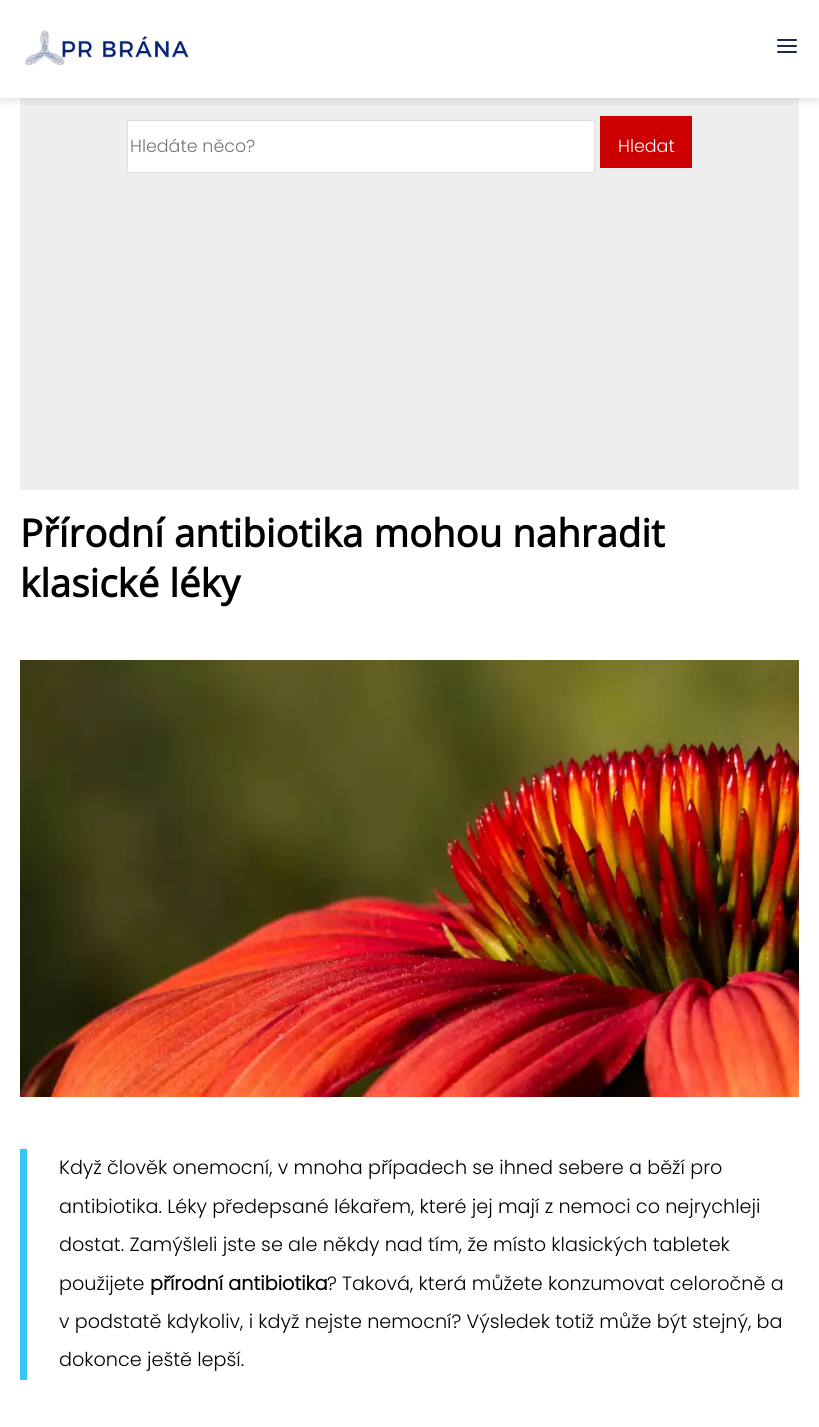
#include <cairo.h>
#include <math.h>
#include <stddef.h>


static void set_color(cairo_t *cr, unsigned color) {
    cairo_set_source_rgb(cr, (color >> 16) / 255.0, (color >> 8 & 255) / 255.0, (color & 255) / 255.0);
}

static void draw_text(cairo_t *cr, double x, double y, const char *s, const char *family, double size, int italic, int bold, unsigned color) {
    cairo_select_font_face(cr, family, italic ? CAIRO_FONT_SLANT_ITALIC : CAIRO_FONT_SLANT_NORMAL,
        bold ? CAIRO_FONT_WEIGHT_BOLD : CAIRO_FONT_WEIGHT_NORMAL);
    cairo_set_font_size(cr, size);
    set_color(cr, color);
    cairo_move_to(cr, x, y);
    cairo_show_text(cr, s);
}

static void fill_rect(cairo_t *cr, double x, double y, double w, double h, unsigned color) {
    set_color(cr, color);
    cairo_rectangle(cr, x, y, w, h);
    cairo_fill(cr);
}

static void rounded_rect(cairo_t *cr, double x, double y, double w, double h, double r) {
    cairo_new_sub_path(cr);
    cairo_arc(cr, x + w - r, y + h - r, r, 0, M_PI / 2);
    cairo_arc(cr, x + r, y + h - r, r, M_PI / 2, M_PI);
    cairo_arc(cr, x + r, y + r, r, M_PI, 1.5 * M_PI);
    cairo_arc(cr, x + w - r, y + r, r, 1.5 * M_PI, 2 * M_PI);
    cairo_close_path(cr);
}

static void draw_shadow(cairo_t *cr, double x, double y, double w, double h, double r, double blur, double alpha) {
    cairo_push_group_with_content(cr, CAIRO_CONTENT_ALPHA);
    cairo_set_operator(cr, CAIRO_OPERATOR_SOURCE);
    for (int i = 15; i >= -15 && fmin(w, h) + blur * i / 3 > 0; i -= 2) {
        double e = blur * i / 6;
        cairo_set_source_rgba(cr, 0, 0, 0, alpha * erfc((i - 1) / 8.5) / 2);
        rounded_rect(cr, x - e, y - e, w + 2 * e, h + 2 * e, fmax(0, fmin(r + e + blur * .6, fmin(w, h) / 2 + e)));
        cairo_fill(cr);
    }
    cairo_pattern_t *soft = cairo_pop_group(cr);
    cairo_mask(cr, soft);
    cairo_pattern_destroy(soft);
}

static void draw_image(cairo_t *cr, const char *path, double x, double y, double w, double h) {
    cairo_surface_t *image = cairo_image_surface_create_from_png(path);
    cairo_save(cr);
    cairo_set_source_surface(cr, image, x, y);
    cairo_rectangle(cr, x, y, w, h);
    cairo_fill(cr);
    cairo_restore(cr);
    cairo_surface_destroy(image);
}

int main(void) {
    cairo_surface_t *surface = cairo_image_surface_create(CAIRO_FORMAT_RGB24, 819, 1427);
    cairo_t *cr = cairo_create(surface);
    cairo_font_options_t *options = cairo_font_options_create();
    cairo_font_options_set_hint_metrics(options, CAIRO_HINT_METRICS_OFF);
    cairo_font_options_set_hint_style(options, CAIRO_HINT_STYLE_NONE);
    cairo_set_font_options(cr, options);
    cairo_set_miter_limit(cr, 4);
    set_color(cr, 0xFFFFFF);
    cairo_paint(cr);
    fill_rect(cr, 20, 98, 779, 392, 0xEEEEEE);
    cairo_save(cr);
    cairo_rectangle(cr, 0, 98, 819, 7);
    cairo_clip(cr);
    set_color(cr, 0x000000);
    draw_shadow(cr, 0, 1, 819, 98, 0, 5, 0.15);
    cairo_restore(cr);
    draw_image(cr, "assets/img1.png", 25, 30, 164, 36);
    cairo_new_path(cr);
    cairo_move_to(cr, 778, 46);
    cairo_line_to(cr, 796, 46);
    cairo_move_to(cr, 778, 40);
    cairo_line_to(cr, 796, 40);
    cairo_move_to(cr, 778, 52);
    cairo_line_to(cr, 796, 52);
    set_color(cr, 0x1D284C);
    cairo_set_line_cap(cr, CAIRO_LINE_CAP_ROUND);
    cairo_set_line_join(cr, CAIRO_LINE_JOIN_ROUND);
    cairo_stroke(cr);
    set_color(cr, 0xFFFFFF);
    cairo_rectangle(cr, 127.5, 120.5, 467, 52);
    cairo_fill_preserve(cr);
    set_color(cr, 0xDDDDDD);
    cairo_set_line_width(cr, 1);
    cairo_set_line_cap(cr, CAIRO_LINE_CAP_BUTT);
    cairo_set_line_join(cr, CAIRO_LINE_JOIN_MITER);
    cairo_stroke(cr);
    draw_text(cr, 130, 152, "Hledáte něco?", "Poppins Light", 17.5, 0, 0, 0x757575);
    fill_rect(cr, 600, 116, 92, 52, 0xCC0000);
    draw_text(cr, 618, 152, "Hledat", "Poppins Light", 17.5, 0, 0, 0xFFFFFF);
    draw_text(cr, 20, 547, "Přírodní antibiotika mohou nahradit", "Open Sans", 38.4, 0, 1, 0x000000);
    draw_text(cr, 20, 597, "klasické léky", "Open Sans", 38.4, 0, 1, 0x000000);
    draw_image(cr, "assets/img2.png", 20, 660, 779, 437);
    fill_rect(cr, 20, 1149, 7, 231, 0x35C6F4);
    draw_text(cr, 59, 1174, "Když člověk onemocní, v mnoha případech se ihned sebere a běží pro", "Poppins Light", 19.2, 0, 0, 0x000000);
    draw_text(cr, 59, 1213, "antibiotika. Léky předepsané lékařem, které jej mají z nemoci co nejrychleji", "Poppins Light", 19.2, 0, 0, 0x000000);
    draw_text(cr, 59, 1251, "dostat. Zamýšleli jste se ale někdy nad tím, že místo klasických tabletek", "Poppins Light", 19.2, 0, 0, 0x000000);
    draw_text(cr, 59, 1290, "použijete", "Poppins Light", 19.2, 0, 0, 0x000000);
    draw_text(cr, 150, 1290, "přírodní antibiotika", "Poppins", 19.2, 0, 1, 0x000000);
    draw_text(cr, 327, 1290, "? Taková, která můžete konzumovat celoročně a", "Poppins Light", 19.2, 0, 0, 0x000000);
    draw_text(cr, 59, 1328, "v podstatě kdykoliv, i když nejste nemocní? Výsledek totiž může být stejný, ba", "Poppins Light", 19.2, 0, 0, 0x000000);
    draw_text(cr, 59, 1366, "dokonce ještě lepší.", "Poppins Light", 19.2, 0, 0, 0x000000);
    cairo_surface_write_to_png(surface, "output.png");
    cairo_font_options_destroy(options);
    cairo_destroy(cr);
    cairo_surface_destroy(surface);
    return 0;
}
